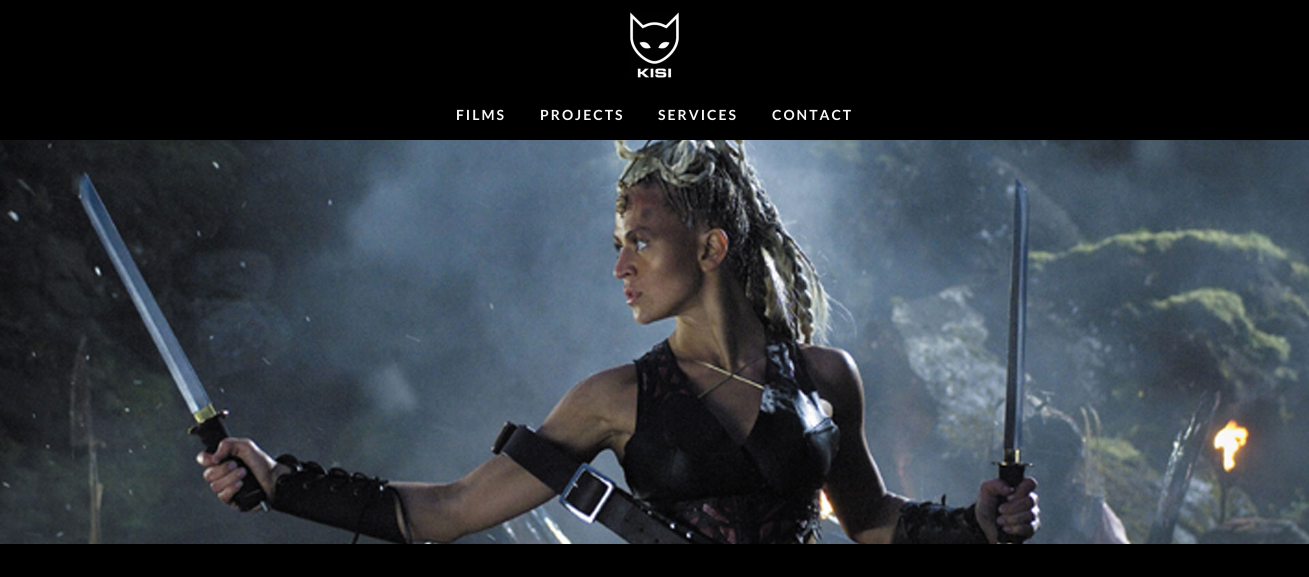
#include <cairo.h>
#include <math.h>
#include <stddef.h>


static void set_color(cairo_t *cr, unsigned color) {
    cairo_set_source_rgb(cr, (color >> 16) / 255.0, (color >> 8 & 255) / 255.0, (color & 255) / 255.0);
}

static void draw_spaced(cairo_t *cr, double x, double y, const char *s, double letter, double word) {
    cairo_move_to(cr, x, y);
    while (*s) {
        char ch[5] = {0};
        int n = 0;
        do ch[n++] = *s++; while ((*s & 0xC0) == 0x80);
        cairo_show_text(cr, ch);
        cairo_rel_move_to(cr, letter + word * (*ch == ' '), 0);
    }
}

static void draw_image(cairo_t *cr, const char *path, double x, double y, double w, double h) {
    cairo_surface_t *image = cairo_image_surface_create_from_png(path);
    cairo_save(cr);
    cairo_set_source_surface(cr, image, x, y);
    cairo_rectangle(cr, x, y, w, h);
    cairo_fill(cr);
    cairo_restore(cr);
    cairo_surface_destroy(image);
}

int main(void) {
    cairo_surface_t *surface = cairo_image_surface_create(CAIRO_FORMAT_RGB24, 1309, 577);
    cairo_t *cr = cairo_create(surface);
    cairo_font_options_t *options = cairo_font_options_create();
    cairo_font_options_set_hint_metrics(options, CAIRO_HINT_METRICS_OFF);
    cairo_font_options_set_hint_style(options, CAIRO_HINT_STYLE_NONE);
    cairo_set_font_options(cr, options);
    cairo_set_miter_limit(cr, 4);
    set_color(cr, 0x000000);
    cairo_paint(cr);
    draw_image(cr, "assets/img1.png", 630, 11, 49, 67);
    cairo_select_font_face(cr, "Lato", CAIRO_FONT_SLANT_NORMAL, CAIRO_FONT_WEIGHT_BOLD);
    cairo_set_font_size(cr, 14);
    set_color(cr, 0xF6F7F8);
    draw_spaced(cr, 456, 120, "FILMS", 2, 0);
    draw_spaced(cr, 540, 120, "PROJECTS", 2, 0);
    draw_spaced(cr, 658, 120, "SERVICES", 2, 0);
    draw_spaced(cr, 772, 120, "CONTACT", 2, 0);
    draw_image(cr, "assets/img2.png", 0, 140, 1309, 404);
    cairo_surface_write_to_png(surface, "output.png");
    cairo_font_options_destroy(options);
    cairo_destroy(cr);
    cairo_surface_destroy(surface);
    return 0;
}
